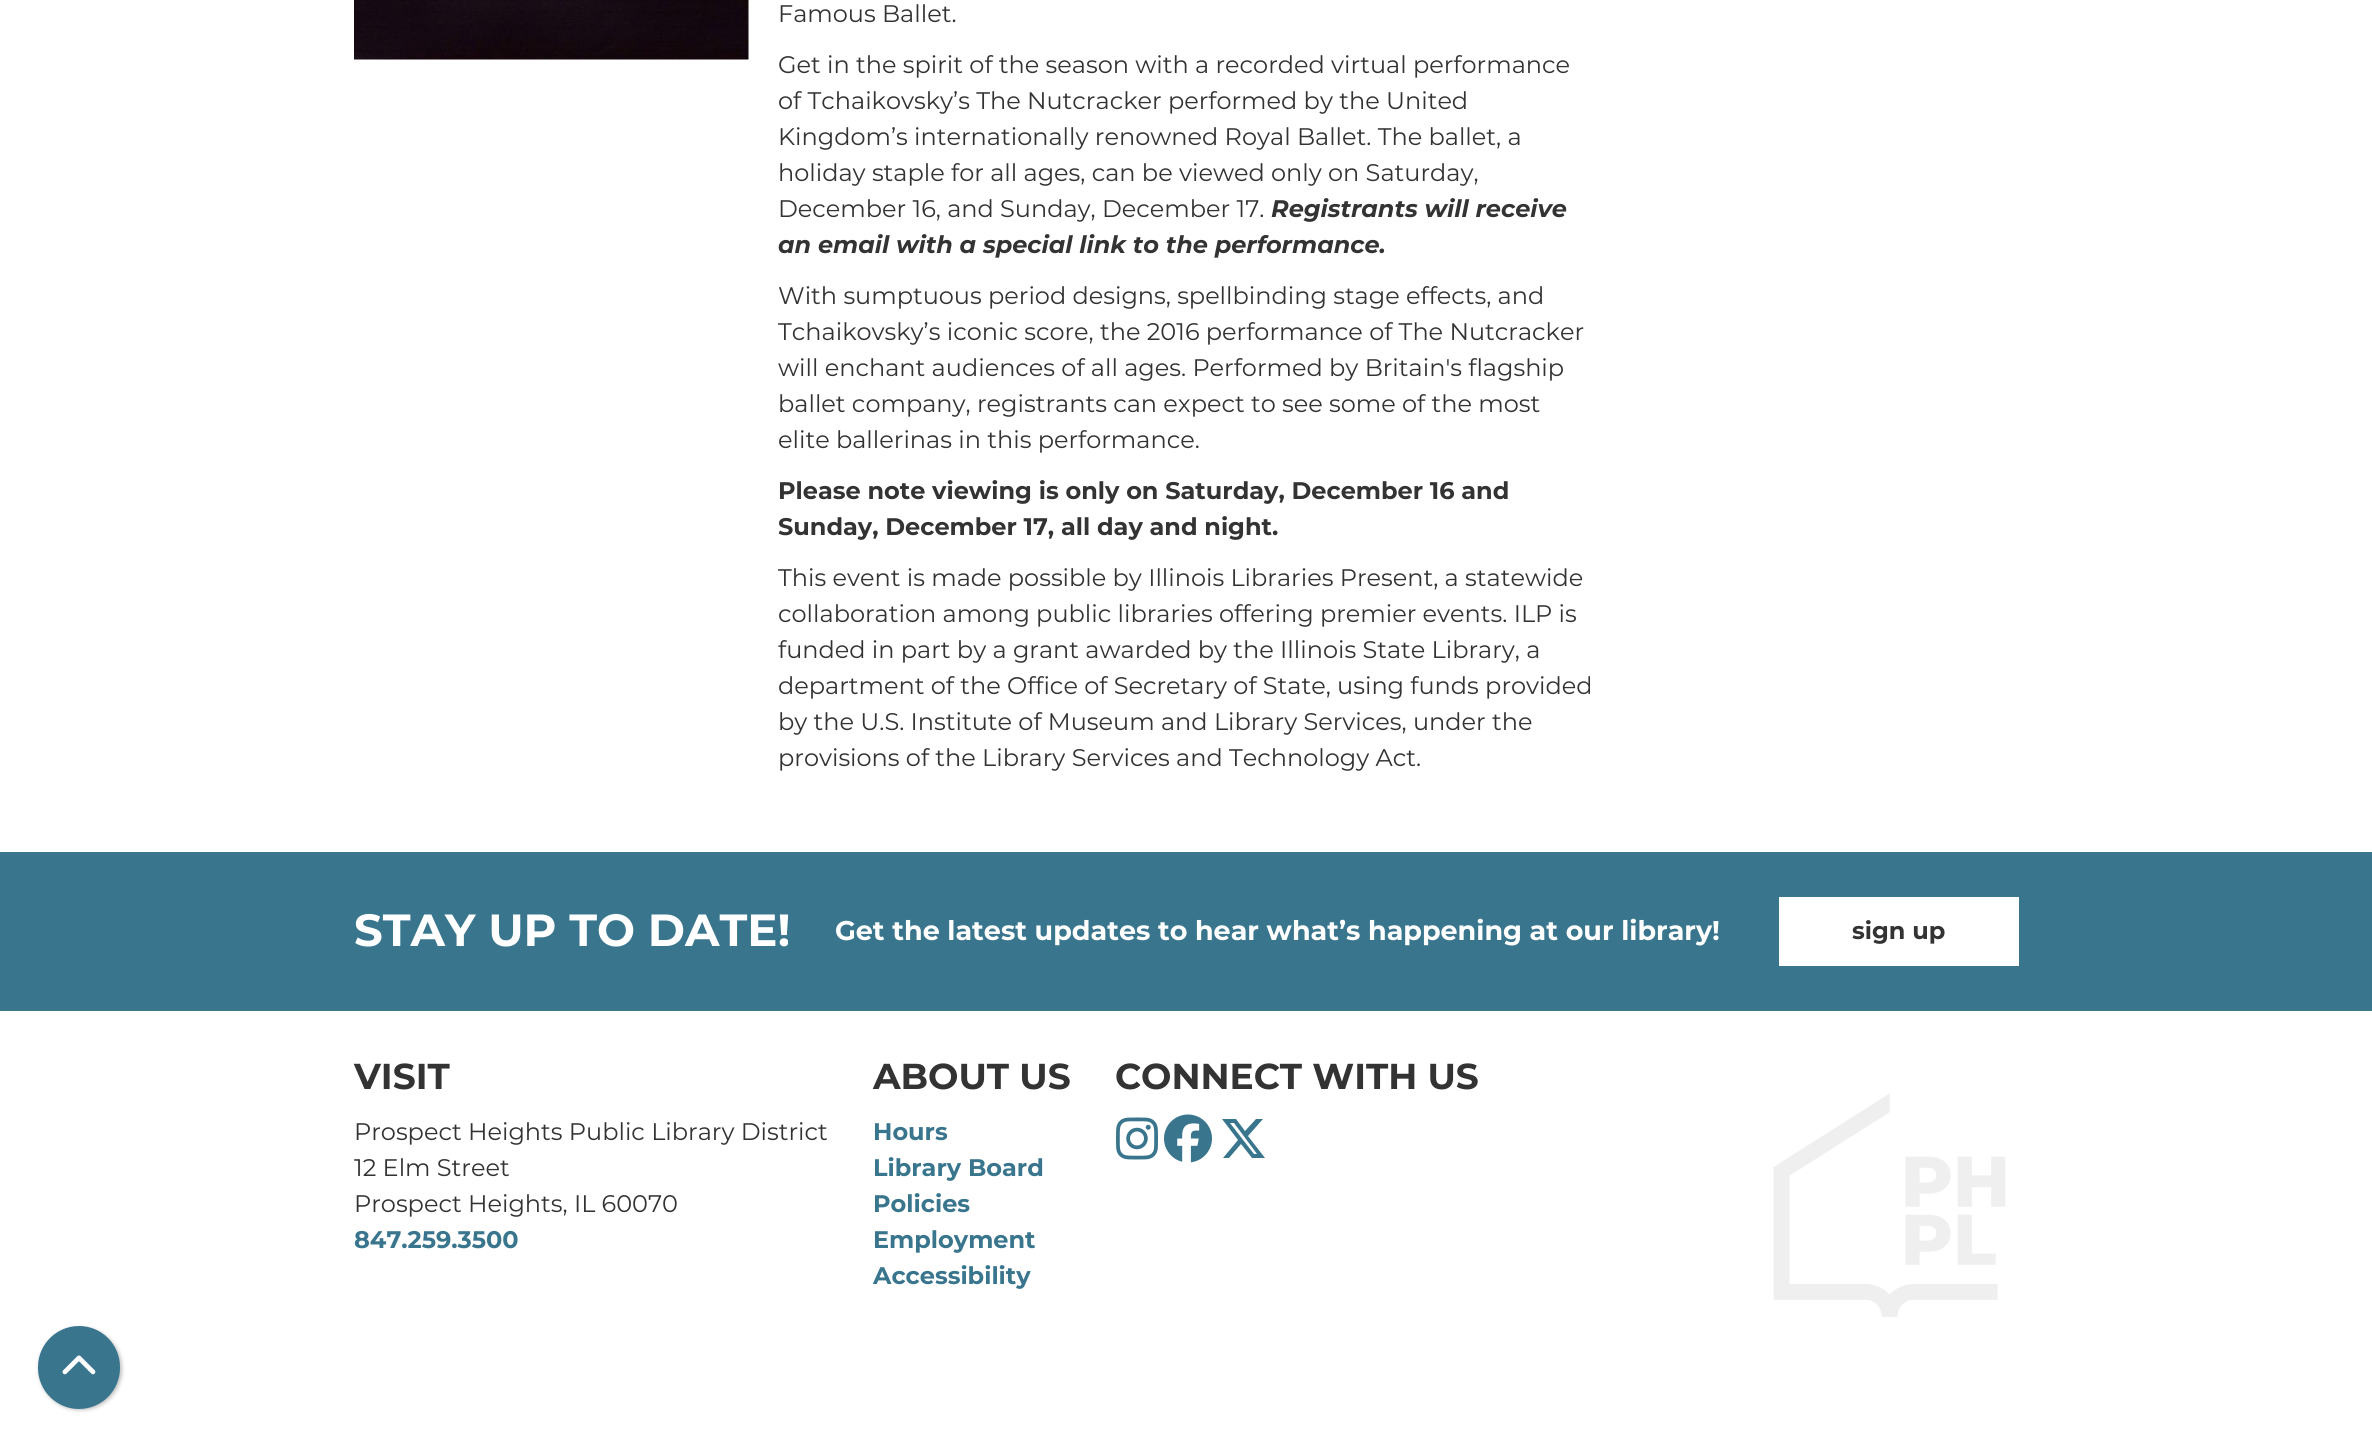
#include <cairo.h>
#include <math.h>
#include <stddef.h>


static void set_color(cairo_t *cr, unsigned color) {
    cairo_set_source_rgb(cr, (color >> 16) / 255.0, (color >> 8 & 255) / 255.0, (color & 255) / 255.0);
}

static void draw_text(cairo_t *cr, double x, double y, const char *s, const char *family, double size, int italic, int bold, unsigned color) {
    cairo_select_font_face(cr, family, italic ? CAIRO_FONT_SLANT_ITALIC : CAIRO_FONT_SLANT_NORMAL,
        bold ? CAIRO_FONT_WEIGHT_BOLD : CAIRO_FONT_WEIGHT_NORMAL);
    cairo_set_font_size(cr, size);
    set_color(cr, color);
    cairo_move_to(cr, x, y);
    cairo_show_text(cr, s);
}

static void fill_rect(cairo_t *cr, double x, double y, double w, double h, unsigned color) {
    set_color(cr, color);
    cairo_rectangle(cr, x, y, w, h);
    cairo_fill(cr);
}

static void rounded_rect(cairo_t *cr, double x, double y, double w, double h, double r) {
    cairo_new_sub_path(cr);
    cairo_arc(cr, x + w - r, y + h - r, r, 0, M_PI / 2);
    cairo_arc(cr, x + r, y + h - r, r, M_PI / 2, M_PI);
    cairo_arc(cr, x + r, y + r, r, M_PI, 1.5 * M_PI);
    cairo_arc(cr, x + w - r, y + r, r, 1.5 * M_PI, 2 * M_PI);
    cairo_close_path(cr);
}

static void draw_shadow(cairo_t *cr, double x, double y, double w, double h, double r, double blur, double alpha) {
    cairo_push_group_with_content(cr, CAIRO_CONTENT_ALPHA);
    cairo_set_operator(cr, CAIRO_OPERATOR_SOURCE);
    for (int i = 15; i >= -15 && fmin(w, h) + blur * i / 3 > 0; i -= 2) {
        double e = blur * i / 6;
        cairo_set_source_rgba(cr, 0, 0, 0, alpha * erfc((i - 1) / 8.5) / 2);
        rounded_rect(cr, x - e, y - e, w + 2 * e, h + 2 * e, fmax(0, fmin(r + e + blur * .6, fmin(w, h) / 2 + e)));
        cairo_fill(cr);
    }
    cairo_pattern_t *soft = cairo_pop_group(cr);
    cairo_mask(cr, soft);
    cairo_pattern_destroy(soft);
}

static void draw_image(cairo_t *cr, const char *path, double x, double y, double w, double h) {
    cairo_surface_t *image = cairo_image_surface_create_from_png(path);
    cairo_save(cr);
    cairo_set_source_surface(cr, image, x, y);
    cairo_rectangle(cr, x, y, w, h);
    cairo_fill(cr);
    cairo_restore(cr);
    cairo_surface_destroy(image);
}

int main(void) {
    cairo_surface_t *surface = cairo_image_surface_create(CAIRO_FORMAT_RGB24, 2372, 1446);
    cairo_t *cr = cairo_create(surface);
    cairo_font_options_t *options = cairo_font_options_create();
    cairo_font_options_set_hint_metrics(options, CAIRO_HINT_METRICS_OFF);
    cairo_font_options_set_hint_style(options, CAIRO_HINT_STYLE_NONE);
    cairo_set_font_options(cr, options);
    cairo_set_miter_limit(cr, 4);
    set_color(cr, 0xFFFFFF);
    cairo_paint(cr);
    draw_image(cr, "assets/img1.png", 354, 0, 395, 60);
    draw_text(cr, 778, 22, "Famous Ballet.", "Montserrat", 24, 0, 0, 0x333333);
    draw_text(cr, 778, 73, "Get in the spirit of the season with a recorded virtual performance", "Montserrat", 24, 0, 0, 0x333333);
    draw_text(cr, 778, 109, "of Tchaikovsky’s The Nutcracker performed by the United", "Montserrat", 24, 0, 0, 0x333333);
    draw_text(cr, 778, 145, "Kingdom’s internationally renowned Royal Ballet. The ballet, a", "Montserrat", 24, 0, 0, 0x333333);
    draw_text(cr, 778, 181, "holiday staple for all ages, can be viewed only on Saturday,", "Montserrat", 24, 0, 0, 0x333333);
    draw_text(cr, 778, 217, "December 16, and Sunday, December 17.", "Montserrat", 24, 0, 0, 0x333333);
    draw_text(cr, 1271, 217, "Registrants will receive", "Montserrat", 24, 1, 1, 0x333333);
    draw_text(cr, 778, 253, "an email with a special link to the performance.", "Montserrat", 24, 1, 1, 0x333333);
    draw_text(cr, 778, 304, "With sumptuous period designs, spellbinding stage effects, and", "Montserrat", 24, 0, 0, 0x333333);
    draw_text(cr, 778, 340, "Tchaikovsky’s iconic score, the 2016 performance of The Nutcracker", "Montserrat", 24, 0, 0, 0x333333);
    draw_text(cr, 778, 376, "will enchant audiences of all ages. Performed by Britain's flagship", "Montserrat", 24, 0, 0, 0x333333);
    draw_text(cr, 778, 412, "ballet company, registrants can expect to see some of the most", "Montserrat", 24, 0, 0, 0x333333);
    draw_text(cr, 778, 448, "elite ballerinas in this performance.", "Montserrat", 24, 0, 0, 0x333333);
    draw_text(cr, 778, 499, "Please note viewing is only on Saturday, December 16 and", "Montserrat", 24, 0, 1, 0x333333);
    draw_text(cr, 778, 535, "Sunday, December 17, all day and night.", "Montserrat", 24, 0, 1, 0x333333);
    draw_text(cr, 778, 586, "This event is made possible by Illinois Libraries Present, a statewide", "Montserrat", 24, 0, 0, 0x333333);
    draw_text(cr, 778, 622, "collaboration among public libraries offering premier events. ILP is", "Montserrat", 24, 0, 0, 0x333333);
    draw_text(cr, 778, 658, "funded in part by a grant awarded by the Illinois State Library, a", "Montserrat", 24, 0, 0, 0x333333);
    draw_text(cr, 778, 694, "department of the Office of Secretary of State, using funds provided", "Montserrat", 24, 0, 0, 0x333333);
    draw_text(cr, 778, 730, "by the U.S. Institute of Museum and Library Services, under the", "Montserrat", 24, 0, 0, 0x333333);
    draw_text(cr, 778, 766, "provisions of the Library Services and Technology Act.", "Montserrat", 24, 0, 0, 0x333333);
    fill_rect(cr, 0, 852, 2372, 159, 0x39768E);
    draw_text(cr, 354, 946, "STAY UP TO DATE!", "Montserrat", 45, 0, 1, 0xFFFFFF);
    draw_text(cr, 835, 940, "Get the latest updates to hear what’s happening at our library!", "Montserrat", 27, 0, 1, 0xFFFFFF);
    fill_rect(cr, 1779, 897, 240, 69, 0xFFFFFF);
    draw_text(cr, 1852, 939, "sign up", "Montserrat", 24, 0, 1, 0x333333);
    draw_image(cr, "assets/img2.png", 1773, 1093, 233, 224);
    draw_text(cr, 354, 1089, "VISIT", "Montserrat", 36, 0, 1, 0x333333);
    draw_text(cr, 354, 1140, "Prospect Heights Public Library District", "Montserrat", 24, 0, 0, 0x333333);
    draw_text(cr, 354, 1176, "12 Elm Street", "Montserrat", 24, 0, 0, 0x333333);
    draw_text(cr, 354, 1212, "Prospect Heights, IL 60070", "Montserrat", 24, 0, 0, 0x333333);
    draw_text(cr, 354, 1248, "847.259.3500", "Montserrat", 24, 0, 1, 0x39768E);
    draw_text(cr, 873, 1089, "ABOUT US", "Montserrat", 36, 0, 1, 0x333333);
    draw_text(cr, 873, 1140, "Hours", "Montserrat", 24, 0, 1, 0x39768E);
    draw_text(cr, 873, 1176, "Library Board", "Montserrat", 24, 0, 1, 0x39768E);
    draw_text(cr, 873, 1212, "Policies", "Montserrat", 24, 0, 1, 0x39768E);
    draw_text(cr, 873, 1248, "Employment", "Montserrat", 24, 0, 1, 0x39768E);
    draw_text(cr, 873, 1284, "Accessibility", "Montserrat", 24, 0, 1, 0x39768E);
    draw_text(cr, 1115, 1089, "CONNECT WITH US", "Montserrat", 36, 0, 1, 0x333333);
    draw_image(cr, "assets/img3.png", 1116, 1117, 42, 43);
    draw_image(cr, "assets/img4.png", 1164, 1114, 48, 49);
    set_color(cr, 0x39768E);
    cairo_new_path(cr);
    cairo_move_to(cr, 1256, 1119);
    cairo_line_to(cr, 1263, 1119);
    cairo_line_to(cr, 1248, 1136);
    cairo_line_to(cr, 1265, 1158);
    cairo_line_to(cr, 1252, 1158);
    cairo_line_to(cr, 1241, 1144);
    cairo_line_to(cr, 1229, 1158);
    cairo_line_to(cr, 1223, 1158);
    cairo_line_to(cr, 1238, 1140);
    cairo_line_to(cr, 1222, 1119);
    cairo_line_to(cr, 1236, 1119);
    cairo_line_to(cr, 1245, 1131);
    cairo_close_path(cr);
    cairo_move_to(cr, 1254, 1154);
    cairo_line_to(cr, 1257, 1154);
    cairo_line_to(cr, 1234, 1123);
    cairo_line_to(cr, 1230, 1123);
    cairo_close_path(cr);
    cairo_fill(cr);
    set_color(cr, 0x000000);
    draw_shadow(cr, 39, 1328, 83, 82, 41, 2, 0.25);
    set_color(cr, 0x39768E);
    rounded_rect(cr, 39, 1327, 80, 81, 40);
    cairo_fill_preserve(cr);
    cairo_stroke(cr);
    draw_image(cr, "assets/img5.png", 62, 1355, 34, 20);
    cairo_surface_write_to_png(surface, "output.png");
    cairo_font_options_destroy(options);
    cairo_destroy(cr);
    cairo_surface_destroy(surface);
    return 0;
}
